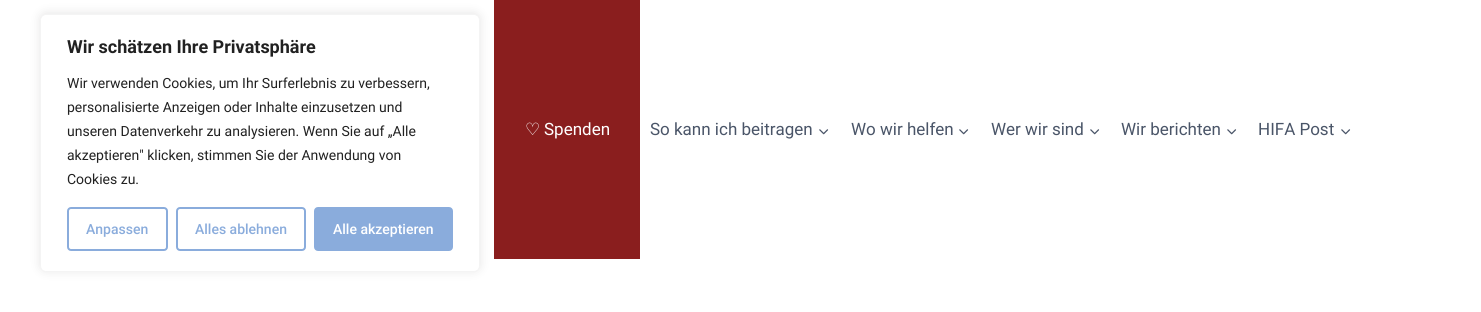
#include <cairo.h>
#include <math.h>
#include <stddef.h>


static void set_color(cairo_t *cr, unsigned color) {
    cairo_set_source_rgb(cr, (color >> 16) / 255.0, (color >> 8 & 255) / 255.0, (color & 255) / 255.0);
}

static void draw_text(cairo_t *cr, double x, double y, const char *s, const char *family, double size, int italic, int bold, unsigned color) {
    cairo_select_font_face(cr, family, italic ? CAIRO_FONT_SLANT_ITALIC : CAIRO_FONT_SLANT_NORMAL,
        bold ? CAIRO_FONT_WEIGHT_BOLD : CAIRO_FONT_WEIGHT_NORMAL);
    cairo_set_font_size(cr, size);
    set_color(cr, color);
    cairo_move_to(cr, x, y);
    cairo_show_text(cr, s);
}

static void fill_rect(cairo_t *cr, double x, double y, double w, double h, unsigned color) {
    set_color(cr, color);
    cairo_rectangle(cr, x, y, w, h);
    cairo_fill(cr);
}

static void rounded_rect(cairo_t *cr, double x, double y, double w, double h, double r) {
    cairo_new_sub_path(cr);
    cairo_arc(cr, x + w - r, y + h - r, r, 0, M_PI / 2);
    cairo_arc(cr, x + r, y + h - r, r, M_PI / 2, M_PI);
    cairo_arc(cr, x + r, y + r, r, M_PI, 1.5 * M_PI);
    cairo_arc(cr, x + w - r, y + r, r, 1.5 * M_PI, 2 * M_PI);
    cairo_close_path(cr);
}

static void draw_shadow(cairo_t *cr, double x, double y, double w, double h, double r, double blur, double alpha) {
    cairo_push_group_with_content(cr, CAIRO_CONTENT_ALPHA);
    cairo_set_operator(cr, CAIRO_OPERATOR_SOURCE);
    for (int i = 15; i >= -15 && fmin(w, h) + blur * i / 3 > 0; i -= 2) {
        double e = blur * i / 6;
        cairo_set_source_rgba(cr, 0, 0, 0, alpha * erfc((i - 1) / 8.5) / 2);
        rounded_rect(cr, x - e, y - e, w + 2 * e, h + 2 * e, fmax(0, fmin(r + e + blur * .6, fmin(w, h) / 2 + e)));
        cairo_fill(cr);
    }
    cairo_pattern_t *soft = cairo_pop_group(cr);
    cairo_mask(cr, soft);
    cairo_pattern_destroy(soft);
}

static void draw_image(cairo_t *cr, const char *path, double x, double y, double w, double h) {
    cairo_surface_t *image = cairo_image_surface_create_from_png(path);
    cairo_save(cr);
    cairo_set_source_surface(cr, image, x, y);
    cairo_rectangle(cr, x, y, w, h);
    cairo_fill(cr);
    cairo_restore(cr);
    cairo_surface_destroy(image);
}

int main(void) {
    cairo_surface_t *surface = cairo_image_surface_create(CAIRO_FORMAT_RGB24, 1481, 312);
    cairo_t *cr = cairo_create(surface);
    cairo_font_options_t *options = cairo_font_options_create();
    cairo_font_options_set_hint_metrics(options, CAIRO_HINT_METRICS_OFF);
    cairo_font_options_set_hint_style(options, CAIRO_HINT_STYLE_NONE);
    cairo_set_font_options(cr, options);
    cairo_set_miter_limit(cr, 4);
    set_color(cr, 0xFFFFFF);
    cairo_paint(cr);
    fill_rect(cr, 494, 0, 146, 259, 0x8A1E1E);
    set_color(cr, 0xACABAB);
    draw_shadow(cr, 40, 13, 440, 258, 6, 5, 0.3);
    set_color(cr, 0xFFFFFF);
    rounded_rect(cr, 40.5, 14.5, 439, 257, 5.5);
    cairo_fill_preserve(cr);
    set_color(cr, 0xF4F4F4);
    cairo_set_line_width(cr, 1);
    cairo_stroke(cr);
    draw_text(cr, 67, 53, "Wir schätzen Ihre Privatsphäre", "Roboto", 18, 0, 1, 0x212121);
    draw_text(cr, 67, 88, "Wir verwenden Cookies, um Ihr Surferlebnis zu verbessern,", "Roboto", 14, 0, 0, 0x212121);
    draw_text(cr, 67, 112, "personalisierte Anzeigen oder Inhalte einzusetzen und", "Roboto", 14, 0, 0, 0x212121);
    draw_text(cr, 67, 136, "unseren Datenverkehr zu analysieren. Wenn Sie auf „Alle", "Roboto", 14, 0, 0, 0x212121);
    draw_text(cr, 67, 160, "akzeptieren\" klicken, stimmen Sie der Anwendung von", "Roboto", 14, 0, 0, 0x212121);
    draw_text(cr, 67, 184, "Cookies zu.", "Roboto", 14, 0, 0, 0x212121);
    rounded_rect(cr, 68, 208, 99, 42, 3);
    set_color(cr, 0x8AACDC);
    cairo_set_line_width(cr, 2);
    cairo_stroke(cr);
    draw_text(cr, 86, 234, "Anpassen", "Roboto Medium", 14, 0, 0, 0x8AACDC);
    rounded_rect(cr, 177, 208, 128, 42, 3);
    cairo_stroke(cr);
    draw_text(cr, 195, 234, "Alles ablehnen", "Roboto Medium", 14, 0, 0, 0x8AACDC);
    rounded_rect(cr, 315, 208, 137, 42, 3);
    cairo_fill_preserve(cr);
    cairo_stroke(cr);
    draw_text(cr, 333, 234, "Alle akzeptieren", "Roboto Medium", 14, 0, 0, 0xFFFFFF);
    draw_text(cr, 525, 135, "♡", "DejaVu Sans", 17, 0, 0, 0xFFFFFF);
    draw_text(cr, 544, 135, "Spenden", "Roboto", 17, 0, 0, 0xFFFFFF);
    draw_text(cr, 650, 135, "So kann ich beitragen", "Roboto", 17, 0, 0, 0x4A5568);
    draw_image(cr, "assets/img1.png", 819, 129, 10, 6);
    draw_text(cr, 851, 135, "Wo wir helfen", "Roboto", 17, 0, 0, 0x4A5568);
    draw_image(cr, "assets/img1.png", 959, 129, 10, 6);
    draw_text(cr, 991, 135, "Wer wir sind", "Roboto", 17, 0, 0, 0x4A5568);
    draw_image(cr, "assets/img1.png", 1090, 129, 10, 6);
    draw_text(cr, 1121, 135, "Wir berichten", "Roboto", 17, 0, 0, 0x4A5568);
    draw_image(cr, "assets/img1.png", 1227, 129, 10, 6);
    draw_text(cr, 1258, 135, "HIFA Post", "Roboto", 17, 0, 0, 0x4A5568);
    draw_image(cr, "assets/img1.png", 1341, 129, 10, 6);
    cairo_surface_write_to_png(surface, "output.png");
    cairo_font_options_destroy(options);
    cairo_destroy(cr);
    cairo_surface_destroy(surface);
    return 0;
}
